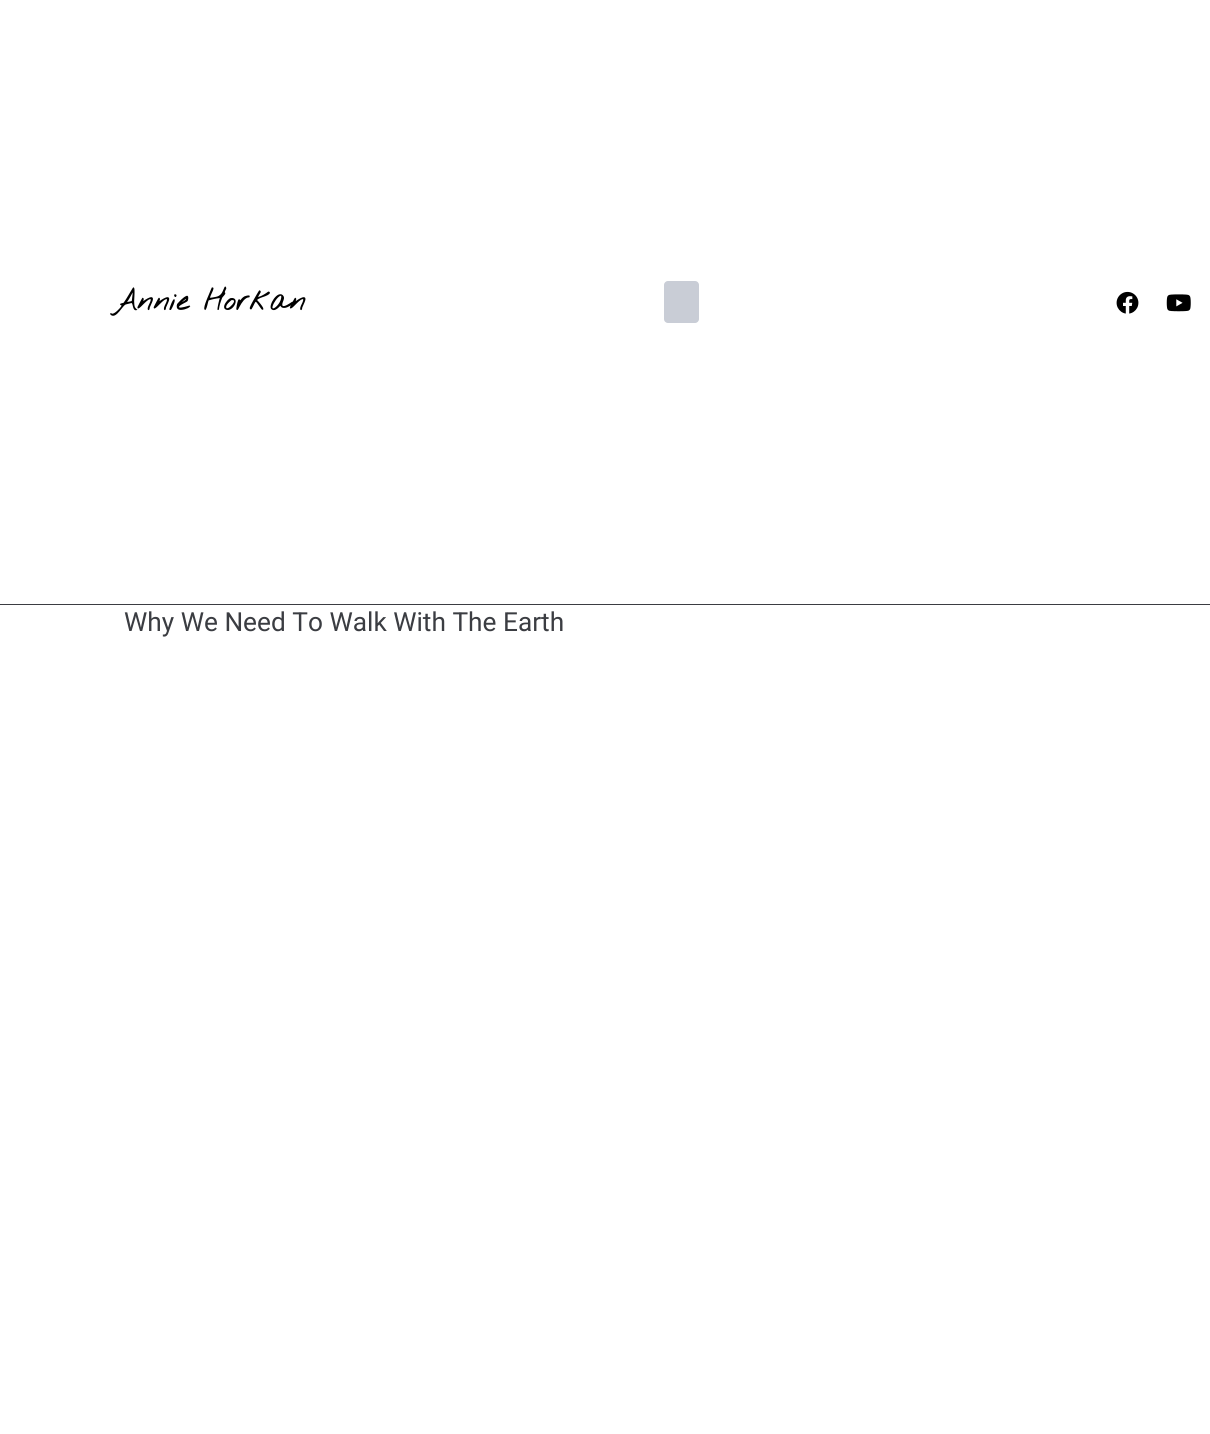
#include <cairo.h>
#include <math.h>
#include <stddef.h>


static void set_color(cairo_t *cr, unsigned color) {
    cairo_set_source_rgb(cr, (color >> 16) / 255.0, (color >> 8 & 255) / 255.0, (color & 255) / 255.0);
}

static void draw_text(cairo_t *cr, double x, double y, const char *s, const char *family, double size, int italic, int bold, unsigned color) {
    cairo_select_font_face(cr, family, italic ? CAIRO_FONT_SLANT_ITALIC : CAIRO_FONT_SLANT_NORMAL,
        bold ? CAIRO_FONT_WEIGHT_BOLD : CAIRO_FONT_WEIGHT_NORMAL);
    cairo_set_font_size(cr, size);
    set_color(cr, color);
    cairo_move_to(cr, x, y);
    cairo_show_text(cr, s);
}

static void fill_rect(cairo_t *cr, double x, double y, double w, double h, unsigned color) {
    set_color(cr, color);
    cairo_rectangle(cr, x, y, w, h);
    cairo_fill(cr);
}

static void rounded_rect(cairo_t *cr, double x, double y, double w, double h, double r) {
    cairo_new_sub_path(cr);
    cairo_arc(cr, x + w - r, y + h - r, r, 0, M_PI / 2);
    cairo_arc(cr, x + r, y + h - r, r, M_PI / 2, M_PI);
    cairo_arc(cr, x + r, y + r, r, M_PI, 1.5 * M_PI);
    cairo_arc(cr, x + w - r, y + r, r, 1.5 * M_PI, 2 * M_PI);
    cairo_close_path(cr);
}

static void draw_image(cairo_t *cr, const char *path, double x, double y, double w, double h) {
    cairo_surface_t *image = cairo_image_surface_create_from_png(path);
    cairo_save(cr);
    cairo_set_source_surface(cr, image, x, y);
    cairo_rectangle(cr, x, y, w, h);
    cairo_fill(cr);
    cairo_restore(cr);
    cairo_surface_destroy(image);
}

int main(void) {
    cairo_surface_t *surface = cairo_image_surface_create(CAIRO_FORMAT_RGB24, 1210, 1434);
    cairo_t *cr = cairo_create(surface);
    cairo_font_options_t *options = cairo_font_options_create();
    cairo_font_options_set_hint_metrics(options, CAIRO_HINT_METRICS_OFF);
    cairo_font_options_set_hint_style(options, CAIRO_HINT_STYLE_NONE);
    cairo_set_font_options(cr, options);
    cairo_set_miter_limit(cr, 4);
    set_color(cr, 0xFFFFFF);
    cairo_paint(cr);
    fill_rect(cr, 0, 604, 1210, 1, 0x3B3D42);
    draw_text(cr, 113, 310, "Annie Horkan", "Nothing You Could Do", 28.75, 0, 1, 0x000000);
    set_color(cr, 0xC9CDD6);
    rounded_rect(cr, 664, 281, 35, 42, 4);
    cairo_fill(cr);
    draw_image(cr, "assets/img1.png", 1116, 291, 23, 23);
    draw_image(cr, "assets/img2.png", 1166, 294, 25, 18);
    draw_text(cr, 124, 631, "Why We Need To Walk With The Earth", "Roboto", 26.25, 0, 0, 0x3B3D42);
    cairo_surface_write_to_png(surface, "output.png");
    cairo_font_options_destroy(options);
    cairo_destroy(cr);
    cairo_surface_destroy(surface);
    return 0;
}
